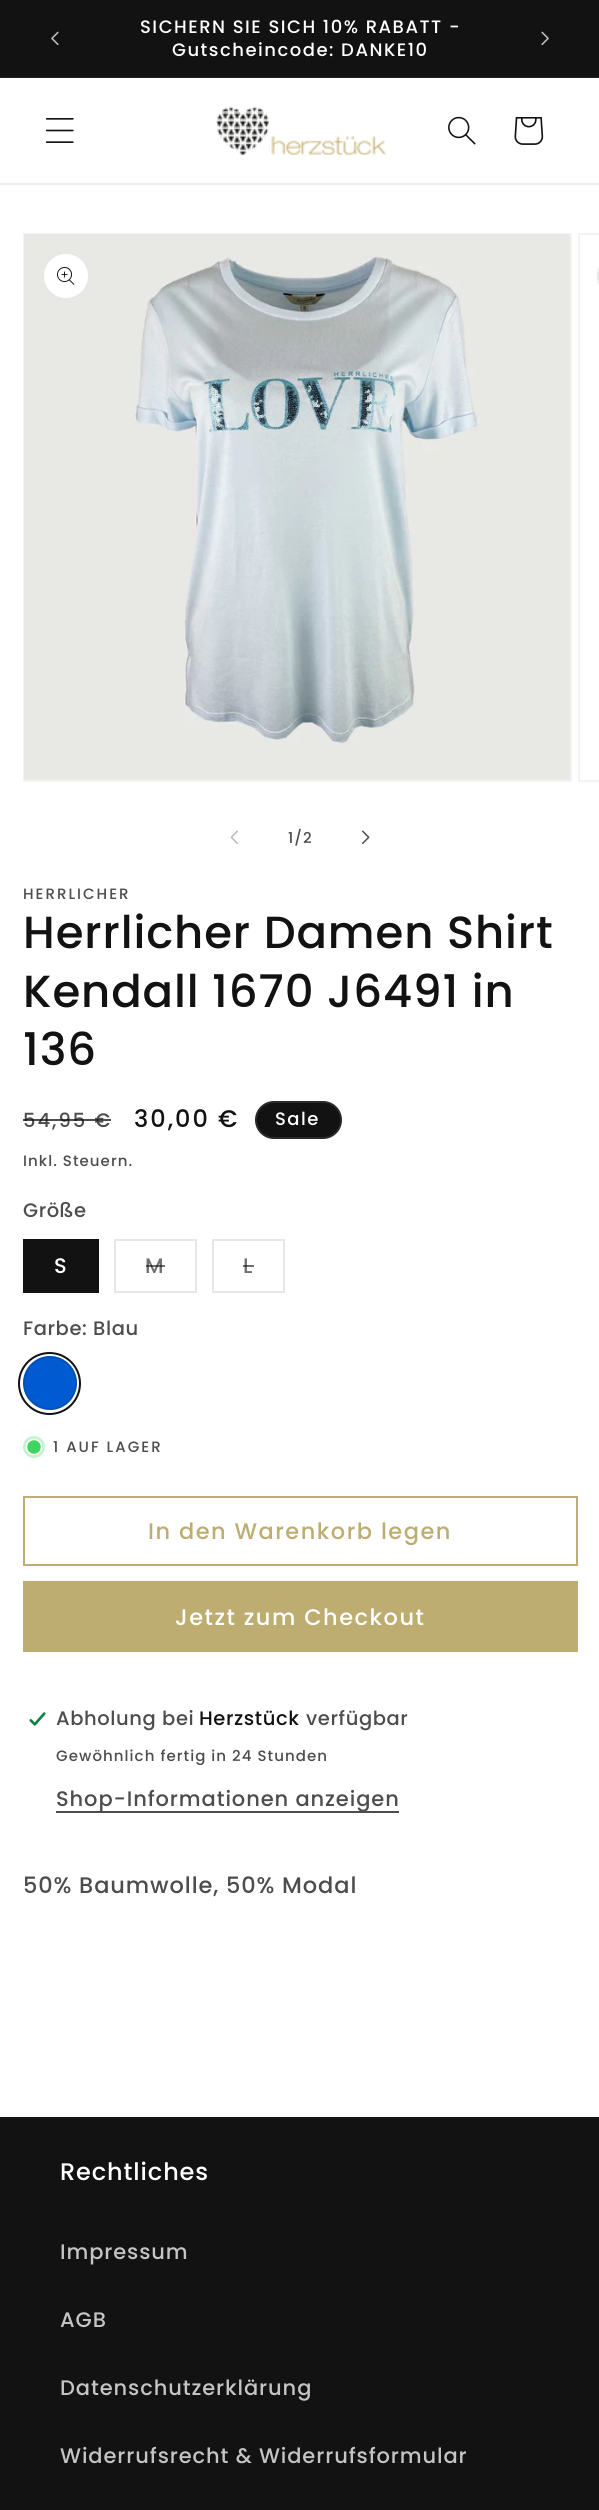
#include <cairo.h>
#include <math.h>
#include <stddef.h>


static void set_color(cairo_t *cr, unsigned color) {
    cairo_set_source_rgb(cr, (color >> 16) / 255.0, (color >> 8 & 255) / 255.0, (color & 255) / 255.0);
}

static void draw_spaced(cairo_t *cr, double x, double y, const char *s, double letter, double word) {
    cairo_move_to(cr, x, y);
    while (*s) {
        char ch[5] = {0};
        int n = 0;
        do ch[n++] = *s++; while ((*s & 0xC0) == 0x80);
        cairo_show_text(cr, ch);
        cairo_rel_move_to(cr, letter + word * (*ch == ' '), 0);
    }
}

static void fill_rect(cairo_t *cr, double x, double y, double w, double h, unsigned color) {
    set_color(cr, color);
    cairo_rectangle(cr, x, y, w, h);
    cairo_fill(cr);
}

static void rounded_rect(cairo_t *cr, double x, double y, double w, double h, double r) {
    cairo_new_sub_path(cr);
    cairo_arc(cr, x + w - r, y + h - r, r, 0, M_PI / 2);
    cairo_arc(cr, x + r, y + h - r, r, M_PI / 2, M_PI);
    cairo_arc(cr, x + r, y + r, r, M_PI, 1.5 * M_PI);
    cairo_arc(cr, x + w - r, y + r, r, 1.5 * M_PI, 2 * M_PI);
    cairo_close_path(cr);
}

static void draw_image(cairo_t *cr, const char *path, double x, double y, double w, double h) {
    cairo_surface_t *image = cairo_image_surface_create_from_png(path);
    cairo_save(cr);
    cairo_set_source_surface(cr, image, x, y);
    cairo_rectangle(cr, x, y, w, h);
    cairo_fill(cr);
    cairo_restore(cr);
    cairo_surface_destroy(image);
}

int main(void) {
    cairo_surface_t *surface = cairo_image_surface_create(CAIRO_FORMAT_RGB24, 599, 2510);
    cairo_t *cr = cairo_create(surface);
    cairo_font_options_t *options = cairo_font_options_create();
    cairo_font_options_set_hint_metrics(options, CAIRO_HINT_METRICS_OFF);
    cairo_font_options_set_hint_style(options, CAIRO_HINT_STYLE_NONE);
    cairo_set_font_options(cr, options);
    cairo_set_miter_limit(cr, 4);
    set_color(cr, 0xFFFFFF);
    cairo_paint(cr);
    fill_rect(cr, 0, 0, 599, 77, 0x121212);
    fill_rect(cr, 0, 77, 599, 1, 0x252525);
    draw_image(cr, "assets/img1.png", 51, 31, 8, 15);
    cairo_select_font_face(cr, "Poppins Medium", CAIRO_FONT_SLANT_NORMAL, CAIRO_FONT_WEIGHT_NORMAL);
    cairo_set_font_size(cr, 18);
    set_color(cr, 0xFFFFFF);
    draw_spaced(cr, 140, 33, "SICHERN SIE SICH 10% RABATT -", 1.5, 0);
    draw_spaced(cr, 172, 56, "Gutscheincode: DANKE10", 1.5, 0);
    draw_image(cr, "assets/img2.png", 541, 31, 8, 15);
    fill_rect(cr, 0, 183, 599, 2, 0xECECEC);
    draw_image(cr, "assets/img3.png", 45, 118, 29, 25);
    draw_image(cr, "assets/img4.png", 216, 106, 170, 50);
    draw_image(cr, "assets/img5.png", 448, 116, 28, 29);
    draw_image(cr, "assets/img6.png", 514, 117, 30, 28);
    cairo_rectangle(cr, 24, 234, 547, 547);
    set_color(cr, 0xF3F3F3);
    cairo_stroke(cr);
    draw_image(cr, "assets/img7.png", 24, 234, 546, 546);
    set_color(cr, 0xFFFFFF);
    cairo_arc(cr, 66, 276, 24, 0, 2 * M_PI);
    cairo_fill(cr);
    cairo_arc(cr, 66, 276, 23, 0, 2 * M_PI);
    cairo_set_source_rgba(cr, 0.071, 0.071, 0.071, 0.1);
    cairo_stroke(cr);
    draw_image(cr, "assets/img8.png", 57, 267, 18, 18);
    cairo_rectangle(cr, 579, 234, 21, 547);
    set_color(cr, 0xF3F3F3);
    cairo_stroke(cr);
    rounded_rect(cr, 598, 253, 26, 46, 23);
    set_color(cr, 0xE7E7E7);
    cairo_stroke(cr);
    draw_image(cr, "assets/img9.png", 230, 830, 8, 14);
    cairo_set_font_size(cr, 15);
    set_color(cr, 0x4D4D4D);
    draw_spaced(cr, 288, 843, "1/2", 1.05, 0);
    draw_image(cr, "assets/img10.png", 362, 830, 8, 14);
    draw_spaced(cr, 23, 899, "HERRLICHER", 2, 0);
    cairo_set_font_size(cr, 45);
    set_color(cr, 0x121212);
    draw_spaced(cr, 23, 948, "Herrlicher Damen Shirt", 0.9, 0);
    draw_spaced(cr, 23, 1007, "Kendall 1670 J6491 in", 0.9, 0);
    draw_spaced(cr, 23, 1065, "136", 0.9, 0);
    cairo_set_font_size(cr, 19.5);
    set_color(cr, 0x4D4D4D);
    draw_spaced(cr, 23, 1127, "54,95 €", 2, 0);
    cairo_set_source_rgba(cr, 0.071, 0.071, 0.071, 0.75);
    cairo_rectangle(cr, 23, 1119, 88, 2);
    cairo_fill(cr);
    cairo_set_font_size(cr, 24);
    set_color(cr, 0x121212);
    draw_spaced(cr, 134, 1127, "30,00 €", 2, 0);
    rounded_rect(cr, 255, 1101, 87, 38, 19);
    cairo_fill(cr);
    rounded_rect(cr, 256, 1102, 85, 36, 18);
    cairo_set_source_rgba(cr, 1, 1, 1, 0.1);
    cairo_stroke(cr);
    cairo_set_font_size(cr, 18);
    set_color(cr, 0xFFFFFF);
    draw_spaced(cr, 275, 1125, "Sale", 1.5, 0);
    cairo_set_font_size(cr, 15);
    set_color(cr, 0x4D4D4D);
    draw_spaced(cr, 23, 1166, "Inkl. Steuern.", 1.05, 0);
    cairo_set_font_size(cr, 19.5);
    draw_spaced(cr, 23, 1217, "Größe", 0.6, 0);
    fill_rect(cr, 23, 1239, 76, 54, 0x121212);
    cairo_set_font_size(cr, 21);
    set_color(cr, 0xFFFFFF);
    draw_spaced(cr, 54, 1273, "S", 1.5, 0);
    cairo_rectangle(cr, 115, 1240, 81, 52);
    set_color(cr, 0xE7E7E7);
    cairo_stroke(cr);
    set_color(cr, 0x717171);
    draw_spaced(cr, 145, 1273, "M", 1.5, 0);
    cairo_set_source_rgba(cr, 0.071, 0.071, 0.071, 0.6);
    cairo_rectangle(cr, 146, 1265, 19, 2);
    cairo_fill(cr);
    cairo_rectangle(cr, 213, 1240, 71, 52);
    set_color(cr, 0xE7E7E7);
    cairo_stroke(cr);
    set_color(cr, 0x717171);
    draw_spaced(cr, 243, 1273, "L", 1.5, 0);
    cairo_set_source_rgba(cr, 0.071, 0.071, 0.071, 0.6);
    cairo_rectangle(cr, 243, 1265, 11, 2);
    cairo_fill(cr);
    cairo_set_font_size(cr, 19.5);
    set_color(cr, 0x4D4D4D);
    draw_spaced(cr, 23, 1335, "Farbe: Blau", 0.6, 0);
    set_color(cr, 0x005BD3);
    cairo_new_path(cr);
    cairo_arc(cr, 50, 1383, 27, 0, 2 * M_PI);
    cairo_fill(cr);
    cairo_arc(cr, 50, 1383, 26, 0, 2 * M_PI);
    cairo_set_source_rgba(cr, 0.071, 0.071, 0.071, 0.15);
    cairo_stroke(cr);
    cairo_arc(cr, 49.5, 1383.5, 30.5, 0, 2 * M_PI);
    set_color(cr, 0x121212);
    cairo_stroke(cr);
    set_color(cr, 0xC5F3CF);
    cairo_arc(cr, 34, 1447, 11, 0, 2 * M_PI);
    cairo_fill(cr);
    set_color(cr, 0x3ED660);
    cairo_arc(cr, 34, 1447, 7.5, 0, 2 * M_PI);
    cairo_fill_preserve(cr);
    set_color(cr, 0xFFFFFF);
    cairo_set_line_width(cr, 1.5);
    cairo_stroke(cr);
    cairo_set_font_size(cr, 15);
    set_color(cr, 0x4D4D4D);
    draw_spaced(cr, 53, 1452, "1 AUF LAGER", 2, 0);
    cairo_rectangle(cr, 24, 1497, 553, 68);
    set_color(cr, 0xBDAD71);
    cairo_set_line_width(cr, 2);
    cairo_stroke(cr);
    cairo_set_font_size(cr, 22.5);
    draw_spaced(cr, 148, 1539, "In den Warenkorb legen", 1.5, 0);
    fill_rect(cr, 23, 1581, 555, 71, 0xBDAD71);
    set_color(cr, 0xFFFFFF);
    draw_spaced(cr, 175, 1625, "Jetzt zum Checkout", 1.5, 0);
    draw_image(cr, "assets/img11.png", 28, 1712, 18, 14);
    cairo_set_font_size(cr, 19.5);
    set_color(cr, 0x4D4D4D);
    draw_spaced(cr, 56, 1725, "Abholung bei", 0.6, 0);
    set_color(cr, 0x121212);
    draw_spaced(cr, 199, 1725, "Herzstück", 0.6, 0);
    set_color(cr, 0x4D4D4D);
    draw_spaced(cr, 306, 1725, "verfügbar", 0.6, 0);
    cairo_set_font_size(cr, 15);
    draw_spaced(cr, 56, 1761, "Gewöhnlich fertig in 24 Stunden", 1.05, 0);
    fill_rect(cr, 56, 1811, 343, 2, 0x4D4D4D);
    cairo_set_font_size(cr, 21);
    draw_spaced(cr, 56, 1806, "Shop-Informationen anzeigen", 0.9, 0);
    cairo_set_font_size(cr, 22.5);
    draw_spaced(cr, 23, 1893, "50% Baumwolle, 50% Modal", 0.9, 0);
    fill_rect(cr, 0, 2117, 599, 393, 0x121212);
    cairo_set_font_size(cr, 24);
    set_color(cr, 0xFFFFFF);
    draw_spaced(cr, 60, 2180, "Rechtliches", 0.9, 0);
    cairo_set_font_size(cr, 21);
    set_color(cr, 0xC4C4C4);
    draw_spaced(cr, 60, 2259, "Impressum", 0.9, 0);
    draw_spaced(cr, 60, 2327, "AGB", 0.9, 0);
    draw_spaced(cr, 60, 2395, "Datenschutzerklärung", 0.9, 0);
    draw_spaced(cr, 60, 2463, "Widerrufsrecht & Widerrufsformular", 0.9, 0);
    cairo_surface_write_to_png(surface, "output.png");
    cairo_font_options_destroy(options);
    cairo_destroy(cr);
    cairo_surface_destroy(surface);
    return 0;
}
